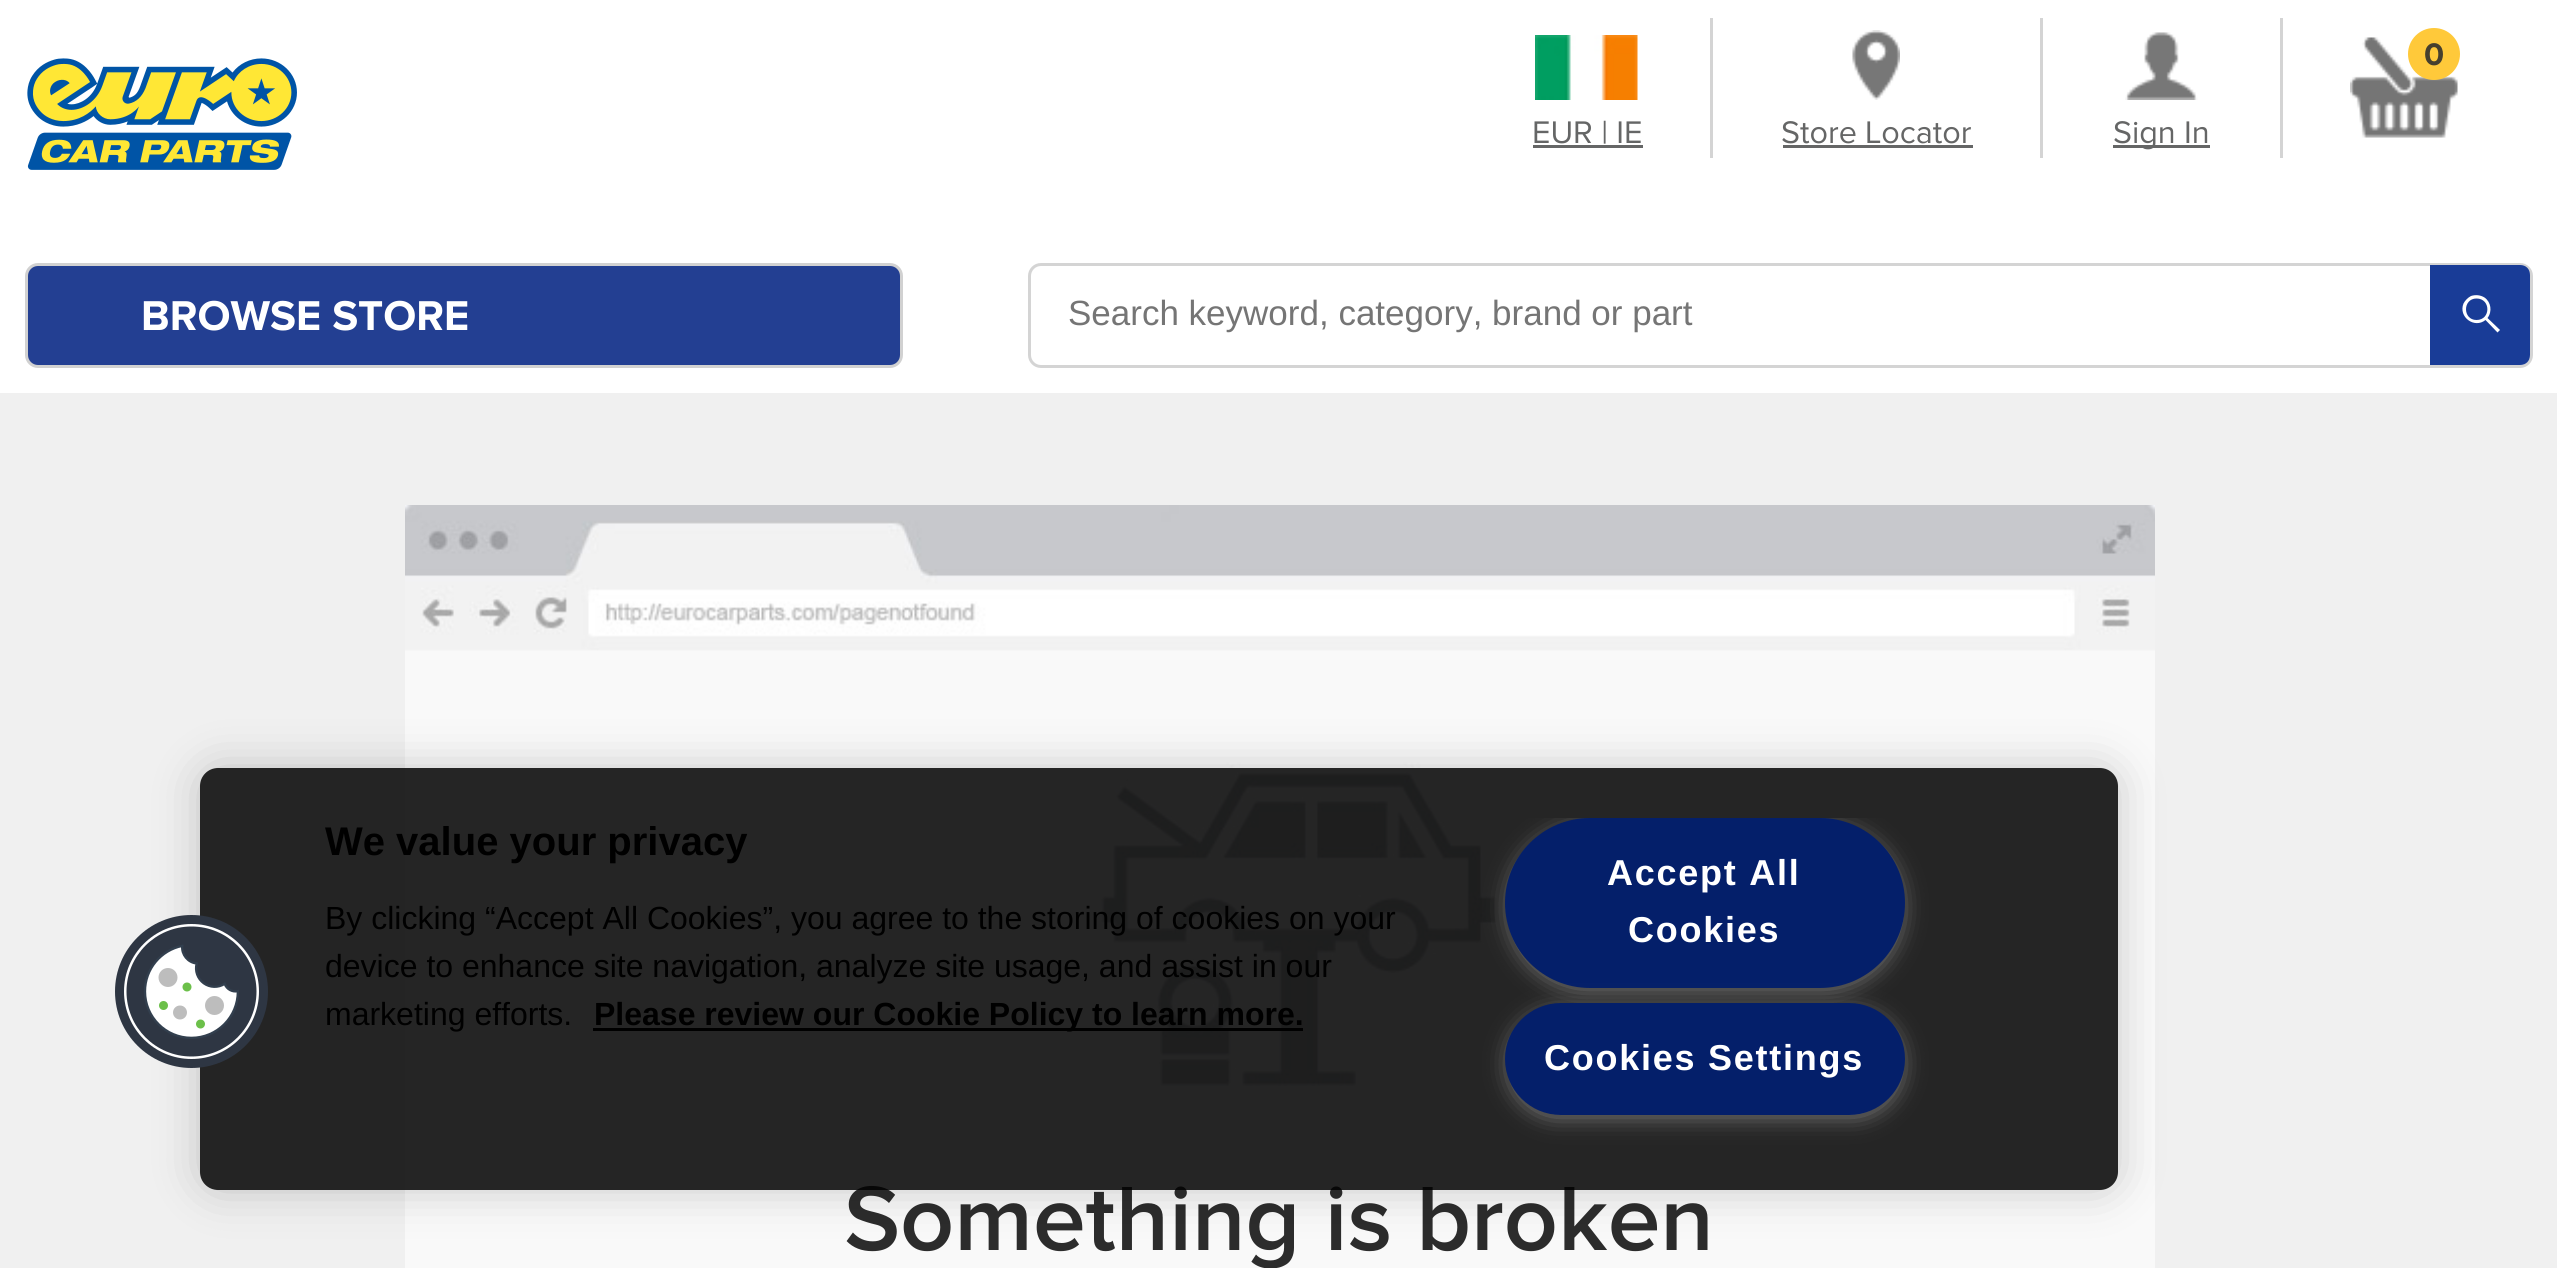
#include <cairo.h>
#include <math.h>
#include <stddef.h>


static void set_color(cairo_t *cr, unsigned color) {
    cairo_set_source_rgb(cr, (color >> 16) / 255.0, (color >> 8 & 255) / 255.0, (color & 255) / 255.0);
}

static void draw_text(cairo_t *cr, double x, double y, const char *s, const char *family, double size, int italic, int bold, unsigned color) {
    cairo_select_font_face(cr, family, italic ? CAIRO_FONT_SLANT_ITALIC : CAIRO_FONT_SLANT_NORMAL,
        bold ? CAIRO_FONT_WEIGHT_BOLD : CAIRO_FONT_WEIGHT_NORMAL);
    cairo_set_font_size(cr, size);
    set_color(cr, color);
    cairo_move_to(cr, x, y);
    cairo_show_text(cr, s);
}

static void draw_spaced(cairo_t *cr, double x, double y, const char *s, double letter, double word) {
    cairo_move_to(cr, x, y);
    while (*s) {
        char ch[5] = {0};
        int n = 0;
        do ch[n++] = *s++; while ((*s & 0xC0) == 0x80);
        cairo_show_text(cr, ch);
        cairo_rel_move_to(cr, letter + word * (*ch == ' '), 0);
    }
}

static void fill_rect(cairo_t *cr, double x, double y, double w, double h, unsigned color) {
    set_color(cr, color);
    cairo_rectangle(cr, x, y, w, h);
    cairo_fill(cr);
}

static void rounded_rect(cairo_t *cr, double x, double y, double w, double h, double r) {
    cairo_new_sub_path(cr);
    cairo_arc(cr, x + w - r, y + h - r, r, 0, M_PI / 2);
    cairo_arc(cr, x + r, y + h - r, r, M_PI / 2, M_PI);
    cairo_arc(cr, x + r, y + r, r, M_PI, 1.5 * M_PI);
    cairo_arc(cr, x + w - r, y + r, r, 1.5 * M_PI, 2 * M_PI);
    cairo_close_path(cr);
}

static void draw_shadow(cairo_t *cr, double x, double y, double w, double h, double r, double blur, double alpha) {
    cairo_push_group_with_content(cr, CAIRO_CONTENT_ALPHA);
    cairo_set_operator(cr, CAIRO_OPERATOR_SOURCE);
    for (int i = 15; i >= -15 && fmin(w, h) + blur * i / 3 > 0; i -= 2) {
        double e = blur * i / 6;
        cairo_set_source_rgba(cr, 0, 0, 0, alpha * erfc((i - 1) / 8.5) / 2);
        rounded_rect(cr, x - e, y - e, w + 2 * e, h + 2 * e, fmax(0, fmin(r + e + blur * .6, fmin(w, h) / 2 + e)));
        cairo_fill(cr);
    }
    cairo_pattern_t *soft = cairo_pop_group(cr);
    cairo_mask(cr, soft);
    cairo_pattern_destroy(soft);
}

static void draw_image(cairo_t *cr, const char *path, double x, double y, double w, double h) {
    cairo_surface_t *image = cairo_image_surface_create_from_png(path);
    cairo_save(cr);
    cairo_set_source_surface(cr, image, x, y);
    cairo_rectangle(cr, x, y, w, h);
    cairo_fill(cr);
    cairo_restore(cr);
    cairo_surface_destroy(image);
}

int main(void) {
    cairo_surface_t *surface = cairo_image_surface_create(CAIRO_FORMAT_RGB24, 2557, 1268);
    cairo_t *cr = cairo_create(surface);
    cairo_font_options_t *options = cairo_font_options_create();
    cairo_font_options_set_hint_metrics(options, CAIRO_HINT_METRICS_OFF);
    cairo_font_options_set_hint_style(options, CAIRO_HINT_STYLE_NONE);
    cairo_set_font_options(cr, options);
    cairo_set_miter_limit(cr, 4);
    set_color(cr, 0xF0F0F0);
    cairo_paint(cr);
    fill_rect(cr, 0, 0, 2557, 393, 0xFFFFFF);
    draw_image(cr, "assets/img1.png", 27, 58, 270, 112);
    draw_image(cr, "assets/img2.png", 2350, 37, 108, 101);
    set_color(cr, 0xFFC93A);
    cairo_arc(cr, 2434, 54, 26, 0, 2 * M_PI);
    cairo_fill(cr);
    draw_text(cr, 2424, 65, "0", "Proxima Nova", 30, 0, 1, 0x463F2E);
    fill_rect(cr, 1710, 18, 3, 140, 0xD4D4D4);
    draw_image(cr, "assets/img3.png", 1535, 35, 103, 65);
    draw_text(cr, 1532, 143, "EUR | IE", "Proxima Nova", 30, 0, 0, 0x656666);
    fill_rect(cr, 1533, 145, 110, 3, 0x656666);
    fill_rect(cr, 2040, 18, 3, 140, 0xD4D4D4);
    draw_image(cr, "assets/img4.png", 1852, 30, 48, 70);
    draw_text(cr, 1781, 143, "Store Locator", "Proxima Nova", 30, 0, 0, 0x656666);
    fill_rect(cr, 1783, 145, 190, 3, 0x656666);
    fill_rect(cr, 2280, 18, 3, 140, 0xD4D4D4);
    draw_image(cr, "assets/img5.png", 2125, 32, 73, 68);
    fill_rect(cr, 2113, 145, 97, 3, 0x656666);
    draw_text(cr, 2113, 143, "Sign In", "Proxima Nova", 30, 0, 0, 0x656666);
    set_color(cr, 0x233F92);
    rounded_rect(cr, 26.5, 264.5, 875, 102, 11.5);
    cairo_fill_preserve(cr);
    set_color(cr, 0xD1D1D1);
    cairo_set_line_width(cr, 3);
    cairo_stroke(cr);
    draw_text(cr, 141, 330, "BROWSE STORE", "Proxima Nova", 40, 0, 1, 0xFFFFFF);
    rounded_rect(cr, 1029.5, 264.5, 1502, 102, 11.5);
    set_color(cr, 0xD4D4D4);
    cairo_stroke(cr);
    draw_text(cr, 1068, 325, "Search keyword, category, brand or part", "Liberation Sans", 35, 0, 0, 0x757575);
    set_color(cr, 0x193C97);
    cairo_set_fill_rule(cr, CAIRO_FILL_RULE_EVEN_ODD);
    cairo_new_path(cr);
    cairo_move_to(cr, 2430, 265);
    cairo_line_to(cr, 2520, 265);
    cairo_curve_to(cr, 2526, 265, 2530, 269, 2530, 275);
    cairo_line_to(cr, 2530, 355);
    cairo_curve_to(cr, 2530, 361, 2526, 365, 2520, 365);
    cairo_line_to(cr, 2430, 365);
    cairo_close_path(cr);
    cairo_fill(cr);
    set_color(cr, 0xFFFFFF);
    cairo_set_fill_rule(cr, CAIRO_FILL_RULE_WINDING);
    cairo_new_path(cr);
    cairo_move_to(cr, 2487.5, 318);
    cairo_line_to(cr, 2500, 330);
    cairo_line_to(cr, 2497.5, 332.5);
    cairo_line_to(cr, 2485.5, 320);
    cairo_curve_to(cr, 2474.5, 329, 2458, 317, 2463.5, 303.5);
    cairo_curve_to(cr, 2465, 300.5, 2468, 297.5, 2471, 296);
    cairo_curve_to(cr, 2475.5, 294.5, 2480.5, 295, 2484.5, 297.5);
    cairo_curve_to(cr, 2491, 302, 2492.5, 311.5, 2487.5, 318);
    cairo_close_path(cr);
    cairo_move_to(cr, 2476.5, 320);
    cairo_curve_to(cr, 2491, 320, 2491, 298.5, 2476.5, 298.5);
    cairo_curve_to(cr, 2462.5, 298.5, 2462.5, 320, 2476.5, 320);
    cairo_close_path(cr);
    cairo_fill(cr);
    draw_image(cr, "assets/img6.png", 405, 505, 1750, 763);
    draw_text(cr, 844, 1250, "Something is broken", "Proxima Nova SemiBold", 87.5, 0, 0, 0x2C2C2C);
    cairo_save(cr);
    cairo_set_fill_rule(cr, CAIRO_FILL_RULE_EVEN_ODD);
    cairo_new_path(cr);
    cairo_move_to(cr, 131, 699);
    cairo_line_to(cr, 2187, 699);
    cairo_line_to(cr, 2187, 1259);
    cairo_line_to(cr, 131, 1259);
    cairo_close_path(cr);
    cairo_move_to(cr, 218, 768);
    cairo_line_to(cr, 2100, 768);
    cairo_curve_to(cr, 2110, 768, 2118, 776, 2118, 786);
    cairo_line_to(cr, 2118, 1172);
    cairo_curve_to(cr, 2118, 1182, 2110, 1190, 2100, 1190);
    cairo_line_to(cr, 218, 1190);
    cairo_curve_to(cr, 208, 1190, 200, 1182, 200, 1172);
    cairo_line_to(cr, 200, 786);
    cairo_curve_to(cr, 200, 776, 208, 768, 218, 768);
    cairo_close_path(cr);
    cairo_clip(cr);
    set_color(cr, 0x000000);
    draw_shadow(cr, 200, 768, 1918, 422, 18, 22.5, 0.2);
    cairo_restore(cr);
    cairo_set_source_rgba(cr, 0, 0, 0, 0.85);
    rounded_rect(cr, 200, 768, 1918, 422, 18);
    cairo_fill(cr);
    draw_image(cr, "assets/img7.png", 115, 915, 153, 153);
    draw_text(cr, 325, 855, "We value your privacy", "Liberation Sans", 40, 0, 1, 0x000000);
    draw_text(cr, 325, 929, "By clicking “Accept All Cookies”, you agree to the storing of cookies on your", "Liberation Sans", 32, 0, 0, 0x000000);
    draw_text(cr, 325, 977, "device to enhance site navigation, analyze site usage, and assist in our", "Liberation Sans", 32, 0, 0, 0x000000);
    draw_text(cr, 325, 1025, "marketing efforts.", "Liberation Sans", 32, 0, 0, 0x000000);
    fill_rect(cr, 593, 1028, 710, 3, 0x000000);
    draw_text(cr, 594, 1025, "Please review our Cookie Policy to learn more.", "Liberation Sans", 32, 0, 1, 0x000000);
    cairo_save(cr);
    cairo_rectangle(cr, 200, 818, 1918, 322);
    cairo_clip(cr);
    set_color(cr, 0x999999);
    draw_shadow(cr, 1513, 830, 385, 155, 77.5, 12.5, 1);
    cairo_restore(cr);
    set_color(cr, 0x041F6A);
    rounded_rect(cr, 1506.5, 819.5, 397, 167, 83.5);
    cairo_fill_preserve(cr);
    cairo_stroke(cr);
    cairo_set_font_size(cr, 36);
    set_color(cr, 0xFFFFFF);
    draw_spaced(cr, 1607, 885, "Accept All", 1.75, 0);
    draw_spaced(cr, 1628, 942, "Cookies", 1.75, 0);
    set_color(cr, 0x999999);
    draw_shadow(cr, 1513, 1015, 385, 98, 49, 12.5, 1);
    set_color(cr, 0x041F6A);
    rounded_rect(cr, 1506.5, 1004.5, 397, 109, 54.5);
    cairo_fill_preserve(cr);
    cairo_stroke(cr);
    set_color(cr, 0xFFFFFF);
    draw_spaced(cr, 1544, 1070, "Cookies Settings", 1.75, 0);
    cairo_surface_write_to_png(surface, "output.png");
    cairo_font_options_destroy(options);
    cairo_destroy(cr);
    cairo_surface_destroy(surface);
    return 0;
}
